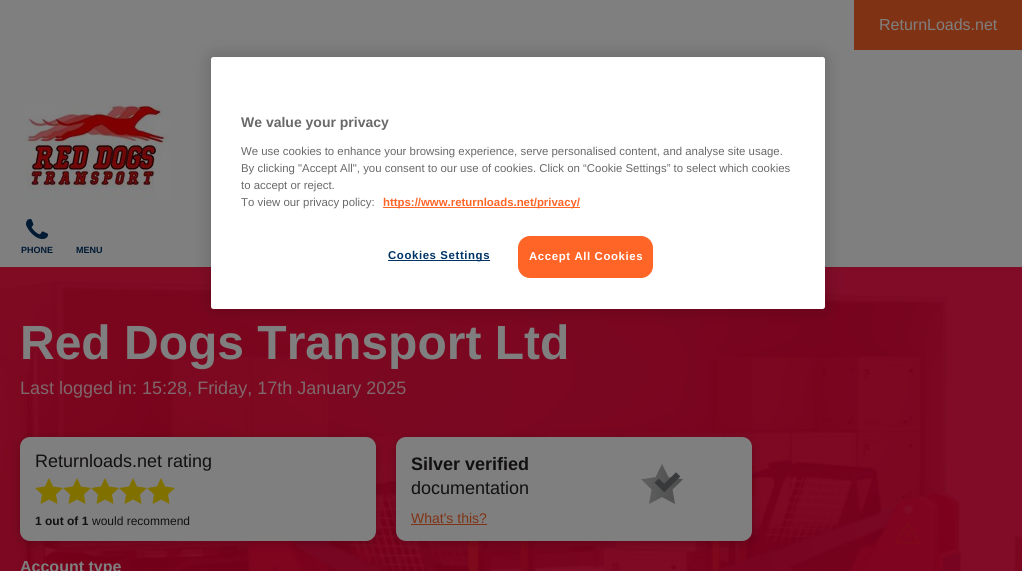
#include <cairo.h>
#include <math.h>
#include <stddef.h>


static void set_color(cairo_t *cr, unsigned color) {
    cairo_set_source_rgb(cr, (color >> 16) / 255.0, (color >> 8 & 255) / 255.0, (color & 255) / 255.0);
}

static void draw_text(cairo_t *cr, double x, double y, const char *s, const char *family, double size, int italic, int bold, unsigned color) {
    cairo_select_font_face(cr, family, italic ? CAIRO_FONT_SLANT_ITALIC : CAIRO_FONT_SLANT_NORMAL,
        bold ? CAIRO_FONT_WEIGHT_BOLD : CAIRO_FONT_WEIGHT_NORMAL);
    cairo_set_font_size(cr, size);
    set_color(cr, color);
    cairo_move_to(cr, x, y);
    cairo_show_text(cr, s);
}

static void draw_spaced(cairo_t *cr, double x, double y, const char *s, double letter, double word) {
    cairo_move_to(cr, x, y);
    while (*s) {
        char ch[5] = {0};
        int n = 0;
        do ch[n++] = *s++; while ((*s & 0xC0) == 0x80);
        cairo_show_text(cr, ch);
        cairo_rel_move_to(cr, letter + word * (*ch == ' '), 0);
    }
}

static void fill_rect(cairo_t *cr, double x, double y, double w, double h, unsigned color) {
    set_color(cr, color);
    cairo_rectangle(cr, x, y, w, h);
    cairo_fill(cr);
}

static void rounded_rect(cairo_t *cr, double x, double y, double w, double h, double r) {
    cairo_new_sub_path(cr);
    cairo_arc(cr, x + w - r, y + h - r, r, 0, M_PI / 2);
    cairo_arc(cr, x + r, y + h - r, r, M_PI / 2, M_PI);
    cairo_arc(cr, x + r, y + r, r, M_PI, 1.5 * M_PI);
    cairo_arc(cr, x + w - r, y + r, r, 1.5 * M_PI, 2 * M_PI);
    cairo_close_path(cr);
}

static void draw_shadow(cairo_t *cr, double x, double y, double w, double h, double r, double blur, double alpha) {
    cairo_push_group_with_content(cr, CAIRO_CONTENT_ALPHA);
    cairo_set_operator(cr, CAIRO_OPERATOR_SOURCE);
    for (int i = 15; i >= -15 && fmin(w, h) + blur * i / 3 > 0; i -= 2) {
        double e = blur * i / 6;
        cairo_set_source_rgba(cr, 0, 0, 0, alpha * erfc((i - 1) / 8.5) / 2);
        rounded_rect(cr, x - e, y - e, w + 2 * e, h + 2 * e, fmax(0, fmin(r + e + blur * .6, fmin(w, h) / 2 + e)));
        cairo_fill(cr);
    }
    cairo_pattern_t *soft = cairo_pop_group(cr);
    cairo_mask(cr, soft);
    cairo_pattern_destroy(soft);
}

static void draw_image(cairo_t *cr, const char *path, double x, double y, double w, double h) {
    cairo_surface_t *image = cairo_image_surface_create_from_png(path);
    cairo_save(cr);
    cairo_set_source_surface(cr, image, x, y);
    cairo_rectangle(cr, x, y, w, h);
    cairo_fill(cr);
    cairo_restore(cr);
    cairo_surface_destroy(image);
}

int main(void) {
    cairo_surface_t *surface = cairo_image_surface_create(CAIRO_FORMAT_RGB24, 1022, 571);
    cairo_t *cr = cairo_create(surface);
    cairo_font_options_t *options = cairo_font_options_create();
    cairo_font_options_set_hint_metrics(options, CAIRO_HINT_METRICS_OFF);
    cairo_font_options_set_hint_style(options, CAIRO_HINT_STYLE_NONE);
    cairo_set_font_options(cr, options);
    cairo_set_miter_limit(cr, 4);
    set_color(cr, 0x7F7F7F);
    cairo_paint(cr);
    fill_rect(cr, 854, 0, 168, 50, 0x803314);
    draw_text(cr, 879, 30, "ReturnLoads.net", "Liberation Sans", 16, 0, 0, 0x7F7F7F);
    draw_image(cr, "assets/img1.png", 25, 103, 145, 96);
    draw_image(cr, "assets/img2.png", 26, 219, 22, 20);
    draw_text(cr, 21, 253, "PHONE", "Liberation Sans", 9, 0, 1, 0x001A33);
    draw_text(cr, 76, 253, "MENU", "Liberation Sans", 9, 0, 1, 0x001A33);
    draw_image(cr, "assets/img3.png", 0, 267, 1022, 304);
    draw_text(cr, 20, 359, "Red Dogs Transport Ltd", "Liberation Sans", 48, 0, 1, 0x7F7F7F);
    draw_text(cr, 20, 394, "Last logged in: 15:28, Friday, 17th January 2025", "Liberation Sans", 18, 0, 0, 0x7F676C);
    set_color(cr, 0x000000);
    draw_shadow(cr, 20, 439, 356, 104, 10, 5, 0.2);
    set_color(cr, 0x7F7F7F);
    rounded_rect(cr, 20, 437, 356, 104, 10);
    cairo_fill(cr);
    draw_text(cr, 35, 467, "Returnloads.net rating", "Liberation Sans", 18, 0, 0, 0x121010);
    set_color(cr, 0x807000);
    cairo_new_path(cr);
    cairo_move_to(cr, 49, 478);
    cairo_line_to(cr, 53, 486.5);
    cairo_line_to(cr, 63, 488);
    cairo_line_to(cr, 56, 494.5);
    cairo_line_to(cr, 57.5, 504);
    cairo_line_to(cr, 49, 499.5);
    cairo_line_to(cr, 40.5, 504);
    cairo_line_to(cr, 42, 494.5);
    cairo_line_to(cr, 35, 488);
    cairo_line_to(cr, 45, 486.5);
    cairo_close_path(cr);
    cairo_move_to(cr, 77, 478);
    cairo_line_to(cr, 81, 486.5);
    cairo_line_to(cr, 91, 488);
    cairo_line_to(cr, 84, 494.5);
    cairo_line_to(cr, 85.5, 504);
    cairo_line_to(cr, 77, 499.5);
    cairo_line_to(cr, 68.5, 504);
    cairo_line_to(cr, 70, 494.5);
    cairo_line_to(cr, 63, 488);
    cairo_line_to(cr, 73, 486.5);
    cairo_close_path(cr);
    cairo_fill(cr);
    cairo_new_path(cr);
    cairo_move_to(cr, 105, 478);
    cairo_line_to(cr, 109, 486.5);
    cairo_line_to(cr, 119, 488);
    cairo_line_to(cr, 112, 494.5);
    cairo_line_to(cr, 113.5, 504);
    cairo_line_to(cr, 105, 499.5);
    cairo_line_to(cr, 96.5, 504);
    cairo_line_to(cr, 98, 494.5);
    cairo_line_to(cr, 91, 488);
    cairo_line_to(cr, 101, 486.5);
    cairo_close_path(cr);
    cairo_move_to(cr, 133, 478);
    cairo_line_to(cr, 137, 486.5);
    cairo_line_to(cr, 147, 488);
    cairo_line_to(cr, 140, 494.5);
    cairo_line_to(cr, 141.5, 504);
    cairo_line_to(cr, 133, 499.5);
    cairo_line_to(cr, 124.5, 504);
    cairo_line_to(cr, 126, 494.5);
    cairo_line_to(cr, 119, 488);
    cairo_line_to(cr, 129, 486.5);
    cairo_close_path(cr);
    cairo_fill(cr);
    cairo_new_path(cr);
    cairo_move_to(cr, 161, 478);
    cairo_line_to(cr, 165, 486.5);
    cairo_line_to(cr, 175, 488);
    cairo_line_to(cr, 168, 494.5);
    cairo_line_to(cr, 169.5, 504);
    cairo_line_to(cr, 161, 499.5);
    cairo_line_to(cr, 152.5, 504);
    cairo_line_to(cr, 154, 494.5);
    cairo_line_to(cr, 147, 488);
    cairo_line_to(cr, 157, 486.5);
    cairo_close_path(cr);
    cairo_fill(cr);
    draw_text(cr, 35, 525, "1 out of 1", "Liberation Sans", 12, 0, 1, 0x121010);
    draw_text(cr, 92, 525, "would recommend", "Liberation Sans", 12, 0, 0, 0x121010);
    set_color(cr, 0x000000);
    draw_shadow(cr, 396, 439, 356, 104, 10, 5, 0.2);
    set_color(cr, 0x7F7F7F);
    rounded_rect(cr, 396, 437, 356, 104, 10);
    cairo_fill(cr);
    draw_text(cr, 411, 470, "Silver verified", "Liberation Sans", 18, 0, 1, 0x121010);
    draw_text(cr, 411, 494, "documentation", "Liberation Sans", 18, 0, 0, 0x121010);
    draw_text(cr, 411, 523, "What's this?", "Liberation Sans", 14, 0, 0, 0x803314);
    fill_rect(cr, 411, 524, 76, 1, 0x803314);
    draw_image(cr, "assets/img4.png", 641, 464, 42, 40);
    draw_text(cr, 20, 572, "Account type", "Liberation Sans", 16, 0, 1, 0x7F7F7F);
    set_color(cr, 0x000000);
    draw_shadow(cr, 211, 57, 614, 252, 2.5, 9, 0.2);
    set_color(cr, 0xFFFFFF);
    rounded_rect(cr, 211, 57, 614, 252, 2.5);
    cairo_fill(cr);
    draw_text(cr, 241, 127, "We value your privacy", "Liberation Sans", 14, 0, 1, 0x696969);
    draw_text(cr, 241, 155, "We use cookies to enhance your browsing experience, serve personalised content, and analyse site usage.", "Liberation Sans", 11.4, 0, 0, 0x696969);
    draw_text(cr, 241, 172, "By clicking \"Accept All\", you consent to our use of cookies. Click on “Cookie Settings” to select which cookies", "Liberation Sans", 11.4, 0, 0, 0x696969);
    draw_text(cr, 241, 189, "to accept or reject.", "Liberation Sans", 11.4, 0, 0, 0x696969);
    draw_text(cr, 241, 206, "To view our privacy policy:", "Liberation Sans", 11.4, 0, 0, 0x696969);
    fill_rect(cr, 383, 207, 197, 1, 0xFF6527);
    draw_text(cr, 383, 206, "https://www.returnloads.net/privacy/", "Liberation Sans", 11.4, 0, 1, 0xFF6527);
    fill_rect(cr, 388, 260, 102, 1, 0x003366);
    draw_spaced(cr, 388, 259, "Cookies Settings", 0.6, 0);
    set_color(cr, 0xFF6527);
    rounded_rect(cr, 518.5, 236.5, 134, 41, 11.5);
    cairo_fill_preserve(cr);
    cairo_set_line_width(cr, 1);
    cairo_stroke(cr);
    set_color(cr, 0xFFFFFF);
    draw_spaced(cr, 529, 260, "Accept All Cookies", 0.6, 0);
    cairo_surface_write_to_png(surface, "output.png");
    cairo_font_options_destroy(options);
    cairo_destroy(cr);
    cairo_surface_destroy(surface);
    return 0;
}
